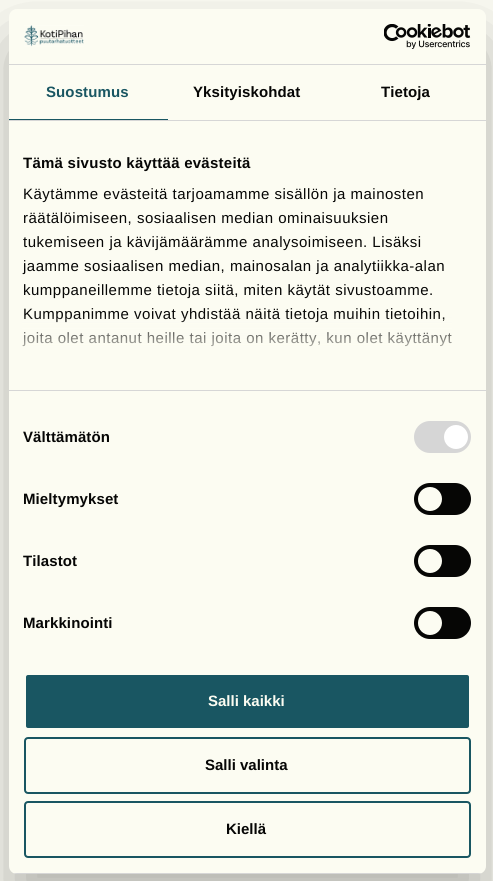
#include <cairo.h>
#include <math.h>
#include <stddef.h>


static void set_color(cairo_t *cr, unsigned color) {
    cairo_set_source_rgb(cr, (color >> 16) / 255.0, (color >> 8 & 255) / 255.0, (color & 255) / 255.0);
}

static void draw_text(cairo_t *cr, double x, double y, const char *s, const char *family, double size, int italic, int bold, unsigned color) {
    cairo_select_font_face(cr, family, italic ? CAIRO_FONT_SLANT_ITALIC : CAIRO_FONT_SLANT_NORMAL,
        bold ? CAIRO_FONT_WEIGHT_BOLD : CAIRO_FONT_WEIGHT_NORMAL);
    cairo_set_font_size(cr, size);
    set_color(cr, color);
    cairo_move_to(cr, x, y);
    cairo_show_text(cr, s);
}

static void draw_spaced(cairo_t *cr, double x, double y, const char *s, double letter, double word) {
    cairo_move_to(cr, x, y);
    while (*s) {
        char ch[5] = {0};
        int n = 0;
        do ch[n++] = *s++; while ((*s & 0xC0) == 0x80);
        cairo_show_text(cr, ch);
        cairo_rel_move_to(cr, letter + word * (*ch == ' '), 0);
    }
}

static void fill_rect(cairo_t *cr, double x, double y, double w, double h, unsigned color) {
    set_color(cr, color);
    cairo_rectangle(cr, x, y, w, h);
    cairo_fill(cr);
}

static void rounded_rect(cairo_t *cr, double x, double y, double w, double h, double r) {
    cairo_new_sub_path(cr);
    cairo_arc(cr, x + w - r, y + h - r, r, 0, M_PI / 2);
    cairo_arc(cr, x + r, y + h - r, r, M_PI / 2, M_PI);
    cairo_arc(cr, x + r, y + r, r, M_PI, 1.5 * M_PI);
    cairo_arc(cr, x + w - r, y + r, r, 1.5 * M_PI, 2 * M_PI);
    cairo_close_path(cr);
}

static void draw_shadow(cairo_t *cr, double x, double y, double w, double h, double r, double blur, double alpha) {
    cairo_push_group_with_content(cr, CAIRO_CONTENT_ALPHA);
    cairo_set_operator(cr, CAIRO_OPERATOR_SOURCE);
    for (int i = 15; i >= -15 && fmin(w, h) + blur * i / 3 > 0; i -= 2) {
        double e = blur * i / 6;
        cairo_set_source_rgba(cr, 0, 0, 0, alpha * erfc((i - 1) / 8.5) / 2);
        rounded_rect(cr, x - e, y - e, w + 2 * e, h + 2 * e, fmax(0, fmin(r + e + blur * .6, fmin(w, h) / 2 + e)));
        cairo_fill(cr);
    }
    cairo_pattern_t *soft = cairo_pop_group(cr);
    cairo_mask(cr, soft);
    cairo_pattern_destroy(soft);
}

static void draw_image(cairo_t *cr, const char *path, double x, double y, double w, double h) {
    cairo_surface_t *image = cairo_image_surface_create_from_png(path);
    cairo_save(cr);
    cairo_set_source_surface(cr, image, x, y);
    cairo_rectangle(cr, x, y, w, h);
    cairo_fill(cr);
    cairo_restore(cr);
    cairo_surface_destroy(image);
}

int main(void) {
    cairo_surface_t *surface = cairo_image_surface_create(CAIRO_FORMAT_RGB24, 493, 881);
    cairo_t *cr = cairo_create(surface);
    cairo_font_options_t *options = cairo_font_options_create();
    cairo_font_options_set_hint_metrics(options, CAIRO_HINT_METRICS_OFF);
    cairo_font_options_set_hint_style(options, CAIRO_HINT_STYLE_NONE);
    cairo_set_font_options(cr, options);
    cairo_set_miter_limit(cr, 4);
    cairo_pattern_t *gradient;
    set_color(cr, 0xFDFDF5);
    cairo_paint(cr);
    set_color(cr, 0x000000);
    draw_shadow(cr, 9, 41, 477, 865, 8, 34, 0.3);
    set_color(cr, 0xFCFCF2);
    rounded_rect(cr, 9, 9, 477, 865, 8);
    cairo_fill(cr);
    fill_rect(cr, 9, 64, 477, 1, 0xD6D6D6);
    draw_image(cr, "assets/img1.png", 24, 25, 60, 22);
    draw_image(cr, "assets/img2.png", 384, 24, 87, 25);
    fill_rect(cr, 9, 120, 477, 1, 0xD6D6D6);
    fill_rect(cr, 9, 119, 159, 1, 0x195662);
    cairo_select_font_face(cr, "Liberation Sans", CAIRO_FONT_SLANT_NORMAL, CAIRO_FONT_WEIGHT_BOLD);
    cairo_set_font_size(cr, 15);
    draw_spaced(cr, 46, 97, "Suostumus", 0.1, 0);
    set_color(cr, 0x060605);
    draw_spaced(cr, 193, 97, "Yksityiskohdat", 0.1, 0);
    draw_spaced(cr, 381, 97, "Tietoja", 0.1, 0);
    fill_rect(cr, 9, 390, 477, 1, 0xD6D6D6);
    set_color(cr, 0x060605);
    draw_spaced(cr, 23, 168, "Tämä sivusto käyttää evästeitä", 0.25, 0);
    cairo_select_font_face(cr, "Liberation Sans", CAIRO_FONT_SLANT_NORMAL, CAIRO_FONT_WEIGHT_NORMAL);
    draw_spaced(cr, 23, 199, "Käytämme evästeitä tarjoamamme sisällön ja mainosten", 0.5, 0);
    draw_spaced(cr, 23, 223, "räätälöimiseen, sosiaalisen median ominaisuuksien", 0.5, 0);
    draw_spaced(cr, 23, 247, "tukemiseen ja kävijämäärämme analysoimiseen. Lisäksi", 0.5, 0);
    draw_spaced(cr, 23, 271, "jaamme sosiaalisen median, mainosalan ja analytiikka-alan", 0.5, 0);
    draw_spaced(cr, 23, 295, "kumppaneillemme tietoja siitä, miten käytät sivustoamme.", 0.5, 0);
    draw_spaced(cr, 23, 319, "Kumppanimme voivat yhdistää näitä tietoja muihin tietoihin,", 0.5, 0);
    draw_spaced(cr, 23, 343, "joita olet antanut heille tai joita on kerätty, kun olet käyttänyt", 0.5, 0);
    gradient = cairo_pattern_create_linear(241, 390, 241, 315);
    cairo_pattern_add_color_stop_rgba(gradient, 0, 0.988, 0.988, 0.949, 1);
    cairo_pattern_add_color_stop_rgba(gradient, 0.5, 0.988, 0.988, 0.949, 0.8);
    cairo_pattern_add_color_stop_rgba(gradient, 1, 0.988, 0.988, 0.949, 0);
    cairo_set_source(cr, gradient);
    cairo_pattern_destroy(gradient);
    cairo_rectangle(cr, 22, 316, 430, 31);
    cairo_fill(cr);
    cairo_select_font_face(cr, "Liberation Sans", CAIRO_FONT_SLANT_NORMAL, CAIRO_FONT_WEIGHT_BOLD);
    set_color(cr, 0x060605);
    draw_spaced(cr, 23, 442, "Välttämätön", 0.1, 0);
    set_color(cr, 0xD6D6D6);
    rounded_rect(cr, 414, 421, 57, 32, 16);
    cairo_fill(cr);
    set_color(cr, 0xFFFFFF);
    cairo_arc(cr, 456, 437, 12, 0, 2 * M_PI);
    cairo_fill(cr);
    set_color(cr, 0x060605);
    draw_spaced(cr, 23, 504, "Mieltymykset", 0.1, 0);
    rounded_rect(cr, 414, 483, 57, 32, 16);
    cairo_fill(cr);
    set_color(cr, 0xFCFCF2);
    cairo_arc(cr, 430, 499, 12, 0, 2 * M_PI);
    cairo_fill(cr);
    set_color(cr, 0x060605);
    draw_spaced(cr, 23, 566, "Tilastot", 0.1, 0);
    rounded_rect(cr, 414, 545, 57, 32, 16);
    cairo_fill(cr);
    set_color(cr, 0xFCFCF2);
    cairo_arc(cr, 430, 561, 12, 0, 2 * M_PI);
    cairo_fill(cr);
    set_color(cr, 0x060605);
    draw_spaced(cr, 23, 628, "Markkinointi", 0.1, 0);
    rounded_rect(cr, 414, 607, 57, 32, 16);
    cairo_fill(cr);
    set_color(cr, 0xFCFCF2);
    cairo_arc(cr, 430, 623, 12, 0, 2 * M_PI);
    cairo_fill(cr);
    cairo_save(cr);
    rounded_rect(cr, 9, 9, 477, 865, 8);
    cairo_clip(cr);
    fill_rect(cr, 9, 873, 477, 1, 0xD6D6D6);
    cairo_restore(cr);
    set_color(cr, 0x195662);
    rounded_rect(cr, 25, 674, 445, 55, 3);
    cairo_fill_preserve(cr);
    set_color(cr, 0xFCFCF2);
    cairo_stroke(cr);
    draw_text(cr, 208, 706, "Salli kaikki", "Liberation Sans", 15, 0, 1, 0xFCFCF2);
    rounded_rect(cr, 25, 738, 445, 55, 3);
    set_color(cr, 0x195662);
    cairo_stroke(cr);
    draw_text(cr, 205, 770, "Salli valinta", "Liberation Sans", 15, 0, 1, 0x060605);
    rounded_rect(cr, 25, 802, 445, 55, 3);
    set_color(cr, 0x195662);
    cairo_stroke(cr);
    draw_text(cr, 226, 834, "Kiellä", "Liberation Sans", 15, 0, 1, 0x060605);
    cairo_surface_write_to_png(surface, "output.png");
    cairo_font_options_destroy(options);
    cairo_destroy(cr);
    cairo_surface_destroy(surface);
    return 0;
}
